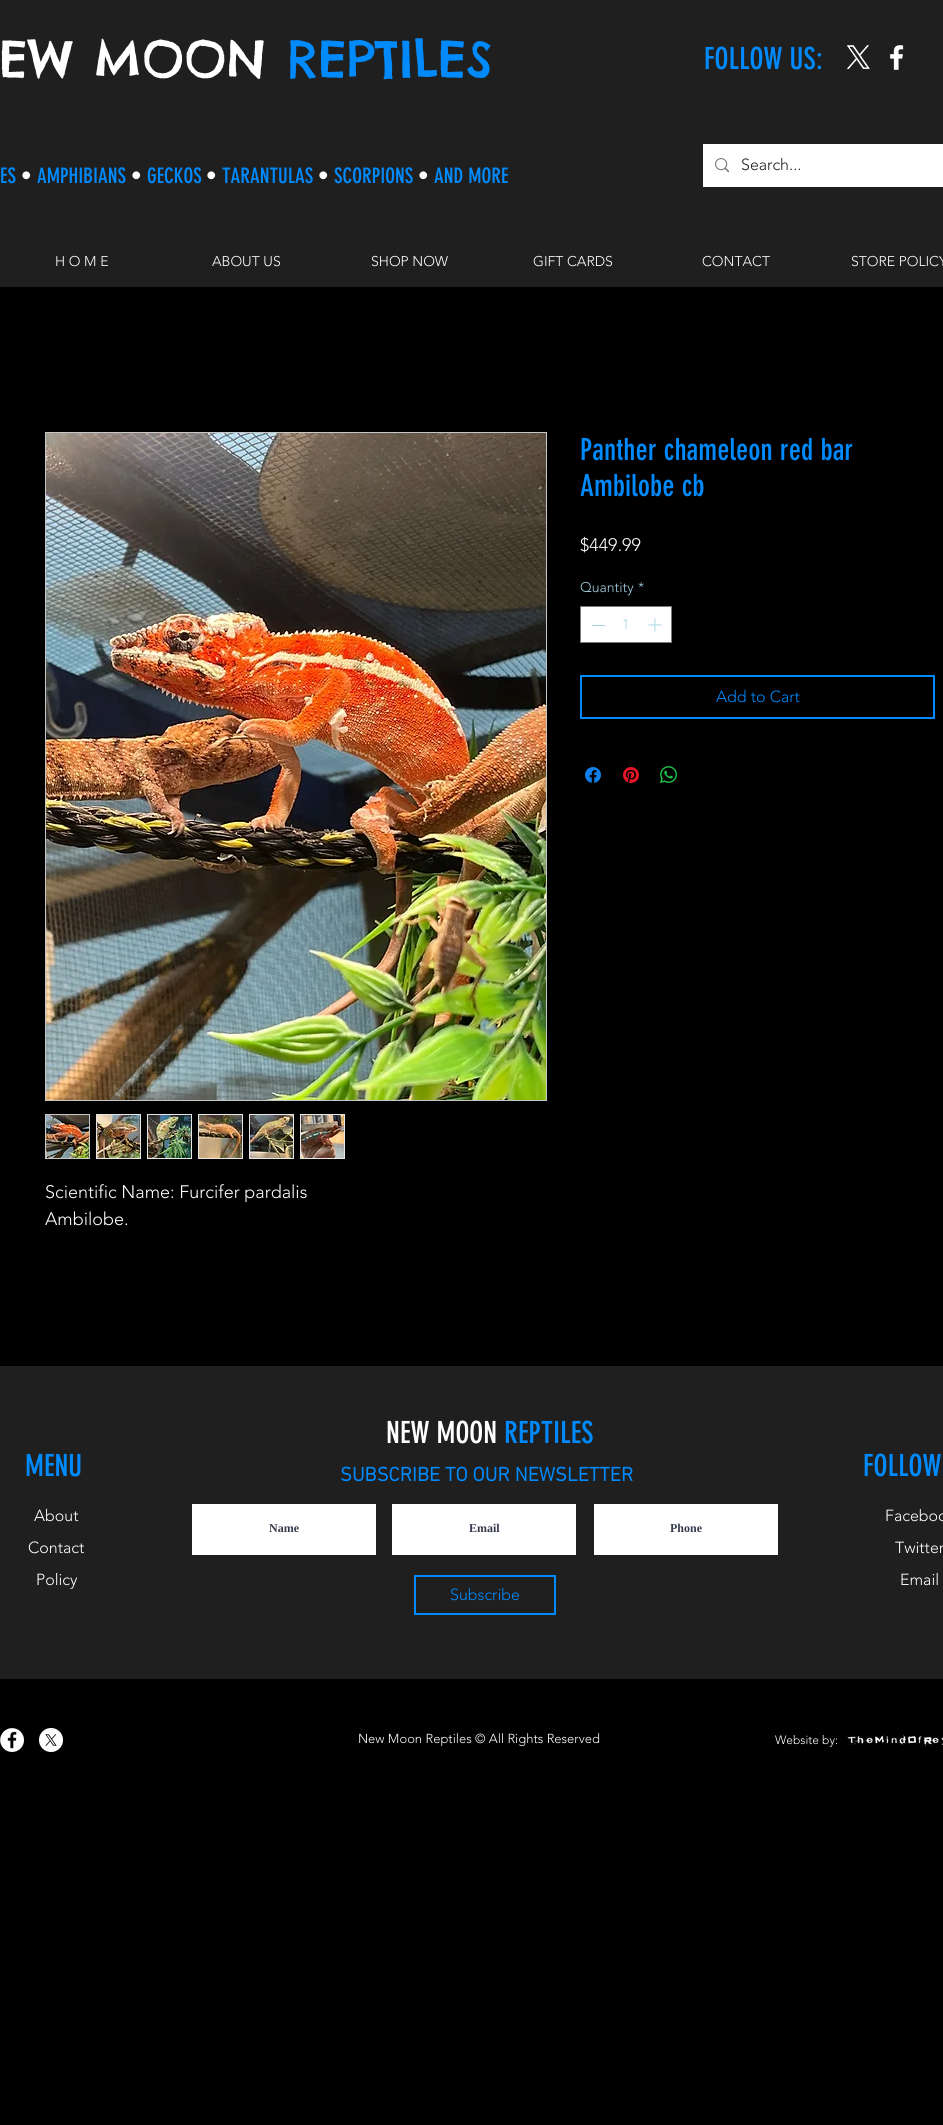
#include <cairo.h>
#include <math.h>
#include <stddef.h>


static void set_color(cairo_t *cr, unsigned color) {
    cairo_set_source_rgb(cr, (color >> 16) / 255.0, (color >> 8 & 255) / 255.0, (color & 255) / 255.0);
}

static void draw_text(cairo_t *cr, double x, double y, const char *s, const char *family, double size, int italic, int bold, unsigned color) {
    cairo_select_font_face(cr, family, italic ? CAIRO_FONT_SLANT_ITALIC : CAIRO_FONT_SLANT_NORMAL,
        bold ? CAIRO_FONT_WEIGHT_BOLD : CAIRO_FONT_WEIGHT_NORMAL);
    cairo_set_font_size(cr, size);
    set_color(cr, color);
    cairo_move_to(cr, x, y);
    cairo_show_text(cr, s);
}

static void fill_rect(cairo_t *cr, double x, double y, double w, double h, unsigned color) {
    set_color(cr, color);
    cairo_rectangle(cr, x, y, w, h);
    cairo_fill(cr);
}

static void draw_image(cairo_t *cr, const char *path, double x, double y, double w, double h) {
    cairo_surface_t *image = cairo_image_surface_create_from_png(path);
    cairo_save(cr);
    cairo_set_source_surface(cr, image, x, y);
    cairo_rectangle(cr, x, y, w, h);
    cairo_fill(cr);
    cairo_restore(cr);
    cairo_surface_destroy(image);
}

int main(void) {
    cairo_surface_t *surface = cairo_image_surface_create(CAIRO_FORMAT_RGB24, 943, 2125);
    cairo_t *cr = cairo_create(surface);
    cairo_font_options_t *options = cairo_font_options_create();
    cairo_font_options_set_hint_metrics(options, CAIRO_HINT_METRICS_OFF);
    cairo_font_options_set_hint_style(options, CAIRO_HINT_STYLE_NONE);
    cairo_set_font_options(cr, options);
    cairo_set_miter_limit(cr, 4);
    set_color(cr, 0x000000);
    cairo_paint(cr);
    fill_rect(cr, 0, 0, 943, 287, 0x1F1F1F);
    draw_text(cr, -1, 77, "EW MOON", "Chelsea Market", 50, 0, 0, 0xFFFFFF);
    draw_text(cr, 287, 77, "REPTILES", "Chelsea Market", 50, 0, 0, 0x008AFC);
    draw_text(cr, 704, 69, "FOLLOW US:", "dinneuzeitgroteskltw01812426", 30, 0, 0, 0x008AFC);
    draw_image(cr, "assets/img1.png", 846, 45, 24, 25);
    draw_image(cr, "assets/img2.png", 889, 45, 15, 25);
    fill_rect(cr, 703, 144, 240, 43, 0xFFFFFF);
    draw_image(cr, "assets/img3.png", 715, 158, 14, 15);
    draw_text(cr, 741, 170, "Search...", "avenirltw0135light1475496 Light", 16, 0, 0, 0x1F1F1F);
    draw_text(cr, 0, 183, "ES", "dinneuzeitgroteskltw01812426", 21, 0, 0, 0x008AFC);
    draw_text(cr, 21, 183, "•", "dinneuzeitgroteskltw01812426", 21, 0, 0, 0xFFFFFF);
    draw_text(cr, 37, 183, "AMPHIBIANS", "dinneuzeitgroteskltw01812426", 21, 0, 0, 0x008AFC);
    draw_text(cr, 131, 183, "•", "dinneuzeitgroteskltw01812426", 21, 0, 0, 0xFFFFFF);
    draw_text(cr, 147, 183, "GECKOS", "dinneuzeitgroteskltw01812426", 21, 0, 0, 0x008AFC);
    draw_text(cr, 206, 183, "•", "dinneuzeitgroteskltw01812426", 21, 0, 0, 0xFFFFFF);
    draw_text(cr, 222, 183, "TARANTULAS", "dinneuzeitgroteskltw01812426", 21, 0, 0, 0x008AFC);
    draw_text(cr, 318, 183, "•", "dinneuzeitgroteskltw01812426", 21, 0, 0, 0xFFFFFF);
    draw_text(cr, 334, 183, "SCORPIONS", "dinneuzeitgroteskltw01812426", 21, 0, 0, 0x008AFC);
    draw_text(cr, 418, 183, "•", "dinneuzeitgroteskltw01812426", 21, 0, 0, 0xFFFFFF);
    draw_text(cr, 434, 183, "AND MORE", "dinneuzeitgroteskltw01812426", 21, 0, 0, 0x008AFC);
    draw_text(cr, 55, 266, "H O M E", "avenirltw0135light1475496 Light", 14, 0, 0, 0xFFFFFF);
    draw_text(cr, 212, 266, "ABOUT US", "avenirltw0135light1475496 Light", 14, 0, 0, 0xFFFFFF);
    draw_text(cr, 371, 266, "SHOP NOW", "avenirltw0135light1475496 Light", 14, 0, 0, 0xFFFFFF);
    draw_text(cr, 533, 266, "GIFT CARDS", "avenirltw0135light1475496 Light", 14, 0, 0, 0xFFFFFF);
    draw_text(cr, 702, 266, "CONTACT", "avenirltw0135light1475496 Light", 14, 0, 0, 0xFFFFFF);
    draw_text(cr, 851, 266, "STORE POLICY", "avenirltw0135light1475496 Light", 14, 0, 0, 0xFFFFFF);
    draw_text(cr, 580, 460, "Panther chameleon red bar", "dinneuzeitgroteskltw01812426", 30, 0, 0, 0x008AFC);
    draw_text(cr, 580, 496, "Ambilobe cb", "dinneuzeitgroteskltw01812426", 30, 0, 0, 0x008AFC);
    draw_text(cr, 580, 551, "$449.99", "avenirltw0135light1475496 Light", 18, 0, 0, 0xFFFFFF);
    draw_text(cr, 580, 592, "Quantity", "avenirltw0135light1475496 Light", 14, 0, 0, 0xA3D1E2);
    draw_text(cr, 638, 592, "*", "avenirltw0135light1475496 Light", 14, 0, 0, 0xA3D1E2);
    set_color(cr, 0xFFFFFF);
    cairo_rectangle(cr, 580.5, 606.5, 91, 36);
    cairo_fill_preserve(cr);
    set_color(cr, 0x797979);
    cairo_set_line_width(cr, 1);
    cairo_stroke(cr);
    fill_rect(cr, 592, 625, 13, 1, 0xA3D1E2);
    draw_text(cr, 622, 629, "1", "avenirltw0135light1475496 Light", 14, 0, 0, 0xA3D1E2);
    draw_image(cr, "assets/img4.png", 648, 618, 14, 14);
    cairo_rectangle(cr, 581, 676, 353, 42);
    set_color(cr, 0x008AFC);
    cairo_set_line_width(cr, 2);
    cairo_stroke(cr);
    draw_text(cr, 716, 702, "Add to Cart", "avenirltw0135light1475496 Light", 16, 0, 0, 0x008AFC);
    draw_image(cr, "assets/img5.png", 585, 767, 16, 16);
    draw_image(cr, "assets/img6.png", 623, 767, 16, 16);
    draw_image(cr, "assets/img7.png", 660, 766, 17, 17);
    cairo_rectangle(cr, 45.5, 432.5, 501, 668);
    set_color(cr, 0xC7C7C7);
    cairo_set_line_width(cr, 1);
    cairo_stroke(cr);
    draw_image(cr, "assets/img8.png", 46, 433, 500, 667);
    cairo_rectangle(cr, 45.5, 1114.5, 44, 44);
    cairo_stroke(cr);
    draw_image(cr, "assets/img9.png", 46, 1115, 43, 43);
    cairo_rectangle(cr, 96.5, 1114.5, 44, 44);
    set_color(cr, 0xE8E6E6);
    cairo_stroke(cr);
    draw_image(cr, "assets/img10.png", 97, 1115, 43, 43);
    cairo_rectangle(cr, 147.5, 1114.5, 44, 44);
    cairo_stroke(cr);
    draw_image(cr, "assets/img11.png", 148, 1115, 43, 43);
    cairo_rectangle(cr, 198.5, 1114.5, 44, 44);
    cairo_stroke(cr);
    draw_image(cr, "assets/img12.png", 199, 1115, 43, 43);
    cairo_rectangle(cr, 249.5, 1114.5, 44, 44);
    cairo_stroke(cr);
    draw_image(cr, "assets/img13.png", 250, 1115, 43, 43);
    cairo_rectangle(cr, 300.5, 1114.5, 44, 44);
    cairo_stroke(cr);
    draw_image(cr, "assets/img14.png", 301, 1115, 43, 43);
    draw_text(cr, 45, 1198, "Scientific Name: Furcifer pardalis", "avenirltw0135light1475496 Light", 18, 0, 0, 0xFFFFFF);
    draw_text(cr, 45, 1225, "Ambilobe.", "avenirltw0135light1475496 Light", 18, 0, 0, 0xFFFFFF);
    fill_rect(cr, 0, 1366, 943, 313, 0x1F1F1F);
    draw_text(cr, 386, 1443, "NEW MOON", "dinneuzeitgroteskltw01812426", 30, 0, 0, 0xFFFFFF);
    draw_text(cr, 504, 1443, "REPTILES", "dinneuzeitgroteskltw01812426", 30, 0, 0, 0x008AFC);
    draw_text(cr, 25, 1476, "MENU", "dinneuzeitgroteskltw01812426", 30, 0, 0, 0x008AFC);
    draw_text(cr, 863, 1476, "FOLLOW", "dinneuzeitgroteskltw01812426", 30, 0, 0, 0x008AFC);
    draw_text(cr, 34, 1521, "About", "avenirltw0135light1475496 Light", 16, 0, 0, 0xFFFFFF);
    draw_text(cr, 28, 1553, "Contact", "avenirltw0135light1475496 Light", 16, 0, 0, 0xFFFFFF);
    draw_text(cr, 36, 1585, "Policy", "avenirltw0135light1475496 Light", 16, 0, 0, 0xFFFFFF);
    draw_text(cr, 340, 1481, "SUBSCRIBE TO OUR NEWSLETTER", "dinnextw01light", 20, 0, 1, 0x008AFC);
    fill_rect(cr, 192, 1504, 184, 51, 0xFFFFFF);
    draw_text(cr, 269, 1532, "Name", "Liberation Serif", 12, 0, 1, 0x373B4D);
    fill_rect(cr, 392, 1504, 184, 51, 0xFFFFFF);
    draw_text(cr, 469, 1532, "Email", "Liberation Serif", 12, 0, 1, 0x373B4D);
    fill_rect(cr, 594, 1504, 184, 51, 0xFFFFFF);
    draw_text(cr, 670, 1532, "Phone", "Liberation Serif", 12, 0, 1, 0x373B4D);
    cairo_rectangle(cr, 415, 1576, 140, 38);
    set_color(cr, 0x008AFC);
    cairo_set_line_width(cr, 2);
    cairo_stroke(cr);
    draw_text(cr, 450, 1600, "Subscribe", "avenirltw0135light1475496 Light", 16, 0, 0, 0x008AFC);
    draw_text(cr, 885, 1521, "Faceboo", "avenirltw0135light1475496 Light", 16, 0, 0, 0xFFFFFF);
    draw_text(cr, 895, 1553, "Twitter", "avenirltw0135light1475496 Light", 16, 0, 0, 0xFFFFFF);
    draw_text(cr, 900, 1585, "Email", "avenirltw0135light1475496 Light", 16, 0, 0, 0xFFFFFF);
    draw_image(cr, "assets/img15.png", 0, 1728, 24, 24);
    draw_image(cr, "assets/img16.png", 39, 1728, 24, 24);
    draw_text(cr, 358, 1743, "New Moon Reptiles © All Rights Reserved", "avenirltw0135light1475496 Light", 13, 0, 0, 0xFFFFFF);
    draw_text(cr, 775, 1744, "Website by:", "avenirltw0135light1475496 Light", 12, 0, 0, 0xFFFFFF);
    draw_image(cr, "assets/img17.png", 846, 1734, 97, 12);
    cairo_surface_write_to_png(surface, "output.png");
    cairo_font_options_destroy(options);
    cairo_destroy(cr);
    cairo_surface_destroy(surface);
    return 0;
}
